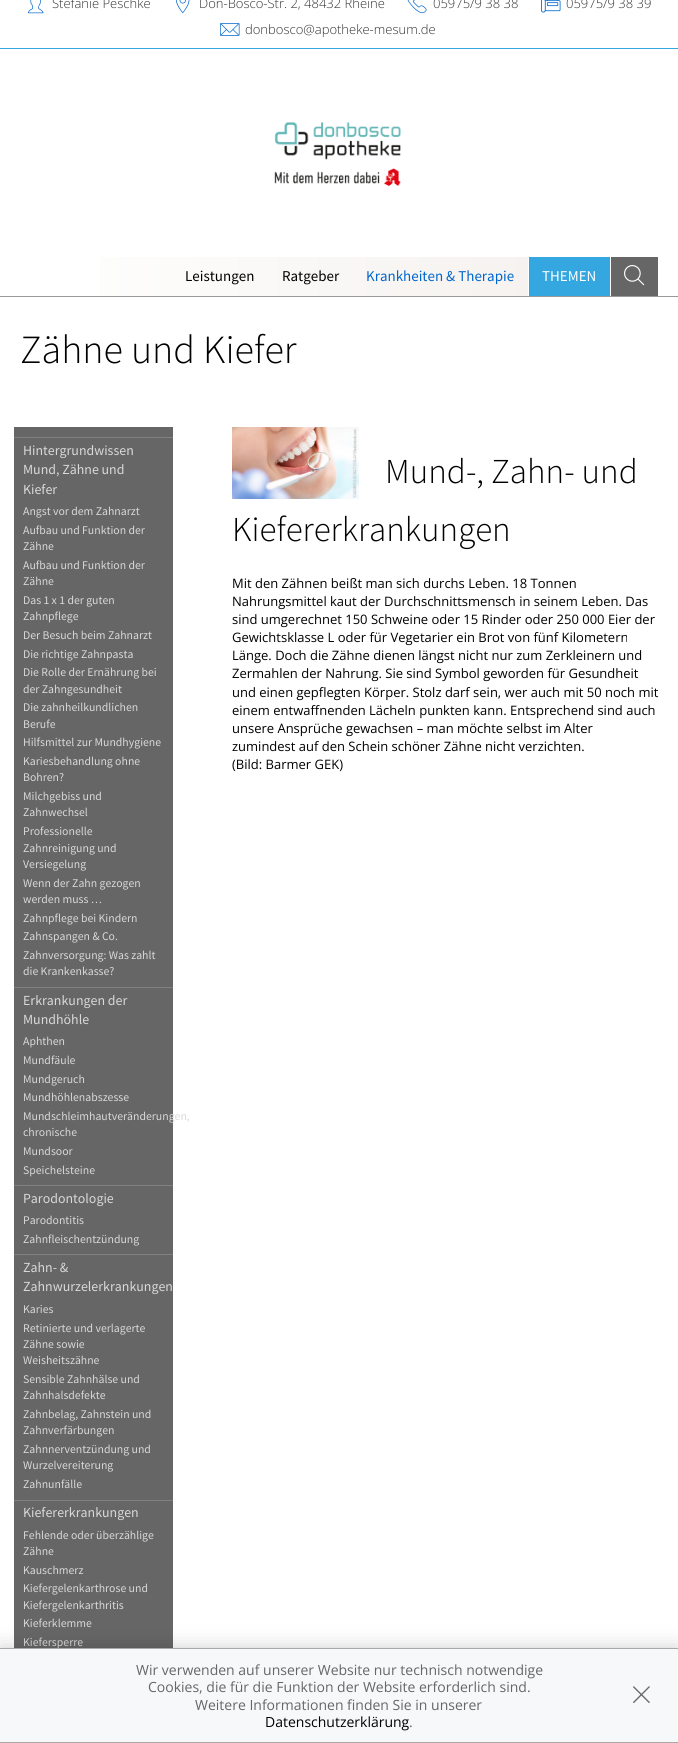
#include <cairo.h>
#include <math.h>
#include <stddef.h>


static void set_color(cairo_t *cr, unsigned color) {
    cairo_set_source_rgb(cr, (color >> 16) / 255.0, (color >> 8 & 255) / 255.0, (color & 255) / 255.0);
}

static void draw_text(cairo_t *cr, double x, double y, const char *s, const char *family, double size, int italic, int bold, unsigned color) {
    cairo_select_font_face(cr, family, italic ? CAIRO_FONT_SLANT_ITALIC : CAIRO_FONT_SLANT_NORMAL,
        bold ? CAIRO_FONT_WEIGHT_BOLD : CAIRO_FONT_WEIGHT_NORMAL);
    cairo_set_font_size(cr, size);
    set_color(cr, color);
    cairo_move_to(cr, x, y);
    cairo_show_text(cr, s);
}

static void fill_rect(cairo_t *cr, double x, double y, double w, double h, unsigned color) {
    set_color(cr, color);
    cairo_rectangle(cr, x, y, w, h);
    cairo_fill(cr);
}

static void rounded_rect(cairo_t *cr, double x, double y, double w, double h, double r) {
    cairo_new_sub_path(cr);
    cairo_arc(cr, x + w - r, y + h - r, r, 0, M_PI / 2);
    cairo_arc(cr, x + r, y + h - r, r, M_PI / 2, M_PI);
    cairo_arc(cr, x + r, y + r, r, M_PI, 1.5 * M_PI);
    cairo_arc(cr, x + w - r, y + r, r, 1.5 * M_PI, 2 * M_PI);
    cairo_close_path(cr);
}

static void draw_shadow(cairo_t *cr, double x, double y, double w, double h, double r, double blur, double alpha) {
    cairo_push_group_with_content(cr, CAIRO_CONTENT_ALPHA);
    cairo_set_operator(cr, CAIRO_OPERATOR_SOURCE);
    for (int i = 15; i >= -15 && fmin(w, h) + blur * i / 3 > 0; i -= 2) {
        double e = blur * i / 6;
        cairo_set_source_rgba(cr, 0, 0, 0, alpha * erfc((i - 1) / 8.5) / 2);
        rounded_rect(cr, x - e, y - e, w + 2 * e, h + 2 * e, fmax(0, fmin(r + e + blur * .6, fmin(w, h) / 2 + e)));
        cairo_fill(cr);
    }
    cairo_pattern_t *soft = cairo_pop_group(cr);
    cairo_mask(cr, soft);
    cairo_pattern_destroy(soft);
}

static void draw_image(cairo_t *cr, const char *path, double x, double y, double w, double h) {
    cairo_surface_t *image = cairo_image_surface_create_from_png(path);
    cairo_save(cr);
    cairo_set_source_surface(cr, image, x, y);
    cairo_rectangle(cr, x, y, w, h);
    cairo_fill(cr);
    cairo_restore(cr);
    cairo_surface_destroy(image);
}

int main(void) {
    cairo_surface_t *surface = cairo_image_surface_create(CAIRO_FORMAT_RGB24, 678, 1743);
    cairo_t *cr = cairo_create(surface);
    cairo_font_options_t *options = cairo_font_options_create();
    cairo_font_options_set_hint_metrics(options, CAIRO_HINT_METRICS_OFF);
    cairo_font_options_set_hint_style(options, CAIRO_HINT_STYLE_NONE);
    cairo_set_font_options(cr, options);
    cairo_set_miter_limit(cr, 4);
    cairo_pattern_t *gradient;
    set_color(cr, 0xFFFFFF);
    cairo_paint(cr);
    fill_rect(cr, 0, 48, 678, 1, 0x34A6E0);
    draw_image(cr, "assets/img1.png", 28, 0, 16, 14);
    draw_text(cr, 52, 8, "Stefanie Peschke", "Open Sans Light", 13, 0, 0, 0x333333);
    draw_image(cr, "assets/img2.png", 176, 0, 14, 14);
    draw_text(cr, 199, 8, "Don-Bosco-Str. 2, 48432 Rheine", "Open Sans Light", 13, 0, 0, 0x333333);
    draw_image(cr, "assets/img3.png", 407, 0, 20, 14);
    draw_text(cr, 433, 8, "05975/9 38 38", "Open Sans Light", 13, 0, 0, 0x333333);
    draw_image(cr, "assets/img4.png", 541, 0, 20, 13);
    draw_text(cr, 566, 8, "05975/9 38 39", "Open Sans Light", 13, 0, 0, 0x333333);
    draw_image(cr, "assets/img5.png", 220, 23, 20, 13);
    draw_text(cr, 245, 34, "donbosco@apotheke-mesum.de", "Open Sans Light", 13, 0, 0, 0x333333);
    draw_image(cr, "assets/img6.png", 274, 122, 127, 64);
    gradient = cairo_pattern_create_linear(20, 277, 658, 277);
    cairo_pattern_add_color_stop_rgba(gradient, 0, 1, 1, 1, 1);
    cairo_pattern_add_color_stop_rgba(gradient, 1, 0.953, 0.937, 0.922, 1);
    cairo_set_source(cr, gradient);
    cairo_pattern_destroy(gradient);
    cairo_rectangle(cr, 100, 257, 428, 39);
    cairo_fill(cr);
    draw_text(cr, 185, 281, "Leistungen", "Source Sans Pro", 15, 0, 0, 0x000000);
    draw_text(cr, 282, 281, "Ratgeber", "Source Sans Pro", 15, 0, 0, 0x000000);
    draw_text(cr, 366, 281, "Krankheiten & Therapie", "Source Sans Pro", 15, 0, 0, 0x0066CC);
    fill_rect(cr, 529, 257, 81, 39, 0x34A6E0);
    draw_text(cr, 542, 281, "THEMEN", "Source Sans Pro", 15, 0, 0, 0xFFFFFF);
    fill_rect(cr, 611, 257, 47, 39, 0x666666);
    draw_image(cr, "assets/img7.png", 624, 265, 21, 21);
    fill_rect(cr, 0, 296, 678, 1, 0x999999);
    draw_text(cr, 20, 363, "Zähne und Kiefer", "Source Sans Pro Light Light", 40, 0, 0, 0x000000);
    fill_rect(cr, 14, 427, 159, 1221, 0x666666);
    fill_rect(cr, 14, 437, 159, 1, 0x808080);
    draw_text(cr, 23, 455, "Hintergrundwissen", "Source Sans Pro", 13.9, 0, 0, 0xD9D9D9);
    draw_text(cr, 23, 474, "Mund, Zähne und", "Source Sans Pro", 13.9, 0, 0, 0xD9D9D9);
    draw_text(cr, 23, 494, "Kiefer", "Source Sans Pro", 13.9, 0, 0, 0xD9D9D9);
    draw_text(cr, 23, 515, "Angst vor dem Zahnarzt", "Source Sans Pro", 11.75, 0, 0, 0xD9D9D9);
    draw_text(cr, 23, 534, "Aufbau und Funktion der", "Source Sans Pro", 11.75, 0, 0, 0xD9D9D9);
    draw_text(cr, 23, 550, "Zähne", "Source Sans Pro", 11.75, 0, 0, 0xD9D9D9);
    draw_text(cr, 23, 569, "Aufbau und Funktion der", "Source Sans Pro", 11.75, 0, 0, 0xD9D9D9);
    draw_text(cr, 23, 585, "Zähne", "Source Sans Pro", 11.75, 0, 0, 0xD9D9D9);
    draw_text(cr, 23, 604, "Das 1 x 1 der guten", "Source Sans Pro", 11.75, 0, 0, 0xD9D9D9);
    draw_text(cr, 23, 620, "Zahnpflege", "Source Sans Pro", 11.75, 0, 0, 0xD9D9D9);
    draw_text(cr, 23, 639, "Der Besuch beim Zahnarzt", "Source Sans Pro", 11.75, 0, 0, 0xD9D9D9);
    draw_text(cr, 23, 658, "Die richtige Zahnpasta", "Source Sans Pro", 11.75, 0, 0, 0xD9D9D9);
    draw_text(cr, 23, 676, "Die Rolle der Ernährung bei", "Source Sans Pro", 11.75, 0, 0, 0xD9D9D9);
    draw_text(cr, 23, 693, "der Zahngesundheit", "Source Sans Pro", 11.75, 0, 0, 0xD9D9D9);
    draw_text(cr, 23, 711, "Die zahnheilkundlichen", "Source Sans Pro", 11.75, 0, 0, 0xD9D9D9);
    draw_text(cr, 23, 728, "Berufe", "Source Sans Pro", 11.75, 0, 0, 0xD9D9D9);
    draw_text(cr, 23, 746, "Hilfsmittel zur Mundhygiene", "Source Sans Pro", 11.75, 0, 0, 0xD9D9D9);
    draw_text(cr, 23, 765, "Kariesbehandlung ohne", "Source Sans Pro", 11.75, 0, 0, 0xD9D9D9);
    draw_text(cr, 23, 781, "Bohren?", "Source Sans Pro", 11.75, 0, 0, 0xD9D9D9);
    draw_text(cr, 23, 800, "Milchgebiss und", "Source Sans Pro", 11.75, 0, 0, 0xD9D9D9);
    draw_text(cr, 23, 816, "Zahnwechsel", "Source Sans Pro", 11.75, 0, 0, 0xD9D9D9);
    draw_text(cr, 23, 835, "Professionelle", "Source Sans Pro", 11.75, 0, 0, 0xD9D9D9);
    draw_text(cr, 23, 852, "Zahnreinigung und", "Source Sans Pro", 11.75, 0, 0, 0xD9D9D9);
    draw_text(cr, 23, 868, "Versiegelung", "Source Sans Pro", 11.75, 0, 0, 0xD9D9D9);
    draw_text(cr, 23, 887, "Wenn der Zahn gezogen", "Source Sans Pro", 11.75, 0, 0, 0xD9D9D9);
    draw_text(cr, 23, 903, "werden muss …", "Source Sans Pro", 11.75, 0, 0, 0xD9D9D9);
    draw_text(cr, 23, 922, "Zahnpflege bei Kindern", "Source Sans Pro", 11.75, 0, 0, 0xD9D9D9);
    draw_text(cr, 23, 940, "Zahnspangen & Co.", "Source Sans Pro", 11.75, 0, 0, 0xD9D9D9);
    draw_text(cr, 23, 959, "Zahnversorgung: Was zahlt", "Source Sans Pro", 11.75, 0, 0, 0xD9D9D9);
    draw_text(cr, 23, 975, "die Krankenkasse?", "Source Sans Pro", 11.75, 0, 0, 0xD9D9D9);
    fill_rect(cr, 14, 987, 159, 1, 0x808080);
    draw_text(cr, 23, 1005, "Erkrankungen der", "Source Sans Pro", 13.9, 0, 0, 0xD9D9D9);
    draw_text(cr, 23, 1024, "Mundhöhle", "Source Sans Pro", 13.9, 0, 0, 0xD9D9D9);
    draw_text(cr, 23, 1045, "Aphthen", "Source Sans Pro", 11.75, 0, 0, 0xD9D9D9);
    draw_text(cr, 23, 1064, "Mundfäule", "Source Sans Pro", 11.75, 0, 0, 0xD9D9D9);
    draw_text(cr, 23, 1083, "Mundgeruch", "Source Sans Pro", 11.75, 0, 0, 0xD9D9D9);
    draw_text(cr, 23, 1101, "Mundhöhlenabszesse", "Source Sans Pro", 11.75, 0, 0, 0xD9D9D9);
    draw_text(cr, 23, 1120, "Mundschleimhautveränderungen,", "Source Sans Pro", 11.75, 0, 0, 0xD9D9D9);
    draw_text(cr, 23, 1136, "chronische", "Source Sans Pro", 11.75, 0, 0, 0xD9D9D9);
    draw_text(cr, 23, 1155, "Mundsoor", "Source Sans Pro", 11.75, 0, 0, 0xD9D9D9);
    draw_text(cr, 23, 1174, "Speichelsteine", "Source Sans Pro", 11.75, 0, 0, 0xD9D9D9);
    fill_rect(cr, 14, 1185, 159, 1, 0x808080);
    draw_text(cr, 23, 1203, "Parodontologie", "Source Sans Pro", 13.9, 0, 0, 0xD9D9D9);
    draw_text(cr, 23, 1224, "Parodontitis", "Source Sans Pro", 11.75, 0, 0, 0xD9D9D9);
    draw_text(cr, 23, 1243, "Zahnfleischentzündung", "Source Sans Pro", 11.75, 0, 0, 0xD9D9D9);
    fill_rect(cr, 14, 1254, 159, 1, 0x808080);
    draw_text(cr, 23, 1272, "Zahn- &", "Source Sans Pro", 13.9, 0, 0, 0xD9D9D9);
    draw_text(cr, 23, 1291, "Zahnwurzelerkrankungen", "Source Sans Pro", 13.9, 0, 0, 0xD9D9D9);
    draw_text(cr, 23, 1313, "Karies", "Source Sans Pro", 11.75, 0, 0, 0xD9D9D9);
    draw_text(cr, 23, 1332, "Retinierte und verlagerte", "Source Sans Pro", 11.75, 0, 0, 0xD9D9D9);
    draw_text(cr, 23, 1348, "Zähne sowie", "Source Sans Pro", 11.75, 0, 0, 0xD9D9D9);
    draw_text(cr, 23, 1364, "Weisheitszähne", "Source Sans Pro", 11.75, 0, 0, 0xD9D9D9);
    draw_text(cr, 23, 1383, "Sensible Zahnhälse und", "Source Sans Pro", 11.75, 0, 0, 0xD9D9D9);
    draw_text(cr, 23, 1399, "Zahnhalsdefekte", "Source Sans Pro", 11.75, 0, 0, 0xD9D9D9);
    draw_text(cr, 23, 1418, "Zahnbelag, Zahnstein und", "Source Sans Pro", 11.75, 0, 0, 0xD9D9D9);
    draw_text(cr, 23, 1434, "Zahnverfärbungen", "Source Sans Pro", 11.75, 0, 0, 0xD9D9D9);
    draw_text(cr, 23, 1453, "Zahnnerventzündung und", "Source Sans Pro", 11.75, 0, 0, 0xD9D9D9);
    draw_text(cr, 23, 1469, "Wurzelvereiterung", "Source Sans Pro", 11.75, 0, 0, 0xD9D9D9);
    draw_text(cr, 23, 1488, "Zahnunfälle", "Source Sans Pro", 11.75, 0, 0, 0xD9D9D9);
    fill_rect(cr, 14, 1500, 159, 1, 0x808080);
    draw_text(cr, 23, 1517, "Kiefererkrankungen", "Source Sans Pro", 13.9, 0, 0, 0xD9D9D9);
    draw_text(cr, 23, 1539, "Fehlende oder überzählige", "Source Sans Pro", 11.75, 0, 0, 0xD9D9D9);
    draw_text(cr, 23, 1555, "Zähne", "Source Sans Pro", 11.75, 0, 0, 0xD9D9D9);
    draw_text(cr, 23, 1574, "Kauschmerz", "Source Sans Pro", 11.75, 0, 0, 0xD9D9D9);
    draw_text(cr, 23, 1592, "Kiefergelenkarthrose und", "Source Sans Pro", 11.75, 0, 0, 0xD9D9D9);
    draw_text(cr, 23, 1609, "Kiefergelenkarthritis", "Source Sans Pro", 11.75, 0, 0, 0xD9D9D9);
    draw_text(cr, 23, 1627, "Kieferklemme", "Source Sans Pro", 11.75, 0, 0, 0xD9D9D9);
    draw_text(cr, 23, 1646, "Kiefersperre", "Source Sans Pro", 11.75, 0, 0, 0xD9D9D9);
    draw_image(cr, "assets/img8.png", 232, 427, 127, 72);
    draw_text(cr, 385, 483, "Mund-, Zahn- und", "Source Sans Pro Light Light", 35, 0, 0, 0x000000);
    draw_text(cr, 232, 541, "Kiefererkrankungen", "Source Sans Pro Light Light", 35, 0, 0, 0x000000);
    draw_text(cr, 232, 588, "Mit den Zähnen beißt man sich durchs Leben. 18 Tonnen", "Open Sans", 13, 0, 0, 0x000000);
    draw_text(cr, 232, 606, "Nahrungsmittel kaut der Durchschnittsmensch in seinem Leben. Das", "Open Sans", 13, 0, 0, 0x000000);
    draw_text(cr, 232, 624, "sind umgerechnet 150 Schweine oder 15 Rinder oder 250 000 Eier der", "Open Sans", 13, 0, 0, 0x000000);
    draw_text(cr, 232, 642, "Gewichtsklasse L oder für Vegetarier ein Brot von fünf Kilometern", "Open Sans", 13, 0, 0, 0x000000);
    draw_text(cr, 232, 660, "Länge. Doch die Zähne dienen längst nicht nur zum Zerkleinern und", "Open Sans", 13, 0, 0, 0x000000);
    draw_text(cr, 232, 678, "Zermahlen der Nahrung. Sie sind Symbol geworden für Gesundheit", "Open Sans", 13, 0, 0, 0x000000);
    draw_text(cr, 232, 697, "und einen gepflegten Körper. Stolz darf sein, wer auch mit 50 noch mit", "Open Sans", 13, 0, 0, 0x000000);
    draw_text(cr, 232, 715, "einem entwaffnenden Lächeln punkten kann. Entsprechend sind auch", "Open Sans", 13, 0, 0, 0x000000);
    draw_text(cr, 232, 733, "unsere Ansprüche gewachsen – man möchte selbst im Alter", "Open Sans", 13, 0, 0, 0x000000);
    draw_text(cr, 232, 751, "zumindest auf den Schein schöner Zähne nicht verzichten.", "Open Sans", 13, 0, 0, 0x000000);
    draw_text(cr, 232, 769, "(Bild: Barmer GEK)", "Open Sans", 13, 0, 0, 0x000000);
    set_color(cr, 0x000000);
    draw_shadow(cr, 0, 1648, 678, 95, 0, 10, 0.2);
    fill_rect(cr, 0, 1649, 678, 93, 0xF7F8F9);
    fill_rect(cr, 0, 1648, 678, 1, 0xA9A9A9);
    fill_rect(cr, 0, 1742, 678, 1, 0xA9A9A9);
    draw_text(cr, 136, 1675, "Wir verwenden auf unserer Website nur technisch notwendige", "Open Sans", 14, 0, 0, 0x666666);
    draw_text(cr, 148, 1692, "Cookies, die für die Funktion der Website erforderlich sind.", "Open Sans", 14, 0, 0, 0x666666);
    draw_text(cr, 195, 1710, "Weitere Informationen finden Sie in unserer", "Open Sans", 14, 0, 0, 0x666666);
    draw_text(cr, 265, 1727, "Datenschutzerklärung", "Open Sans", 14, 0, 0, 0x000000);
    draw_text(cr, 409, 1727, ".", "Open Sans", 14, 0, 0, 0x666666);
    draw_image(cr, "assets/img9.png", 633, 1686, 17, 17);
    cairo_surface_write_to_png(surface, "output.png");
    cairo_font_options_destroy(options);
    cairo_destroy(cr);
    cairo_surface_destroy(surface);
    return 0;
}
